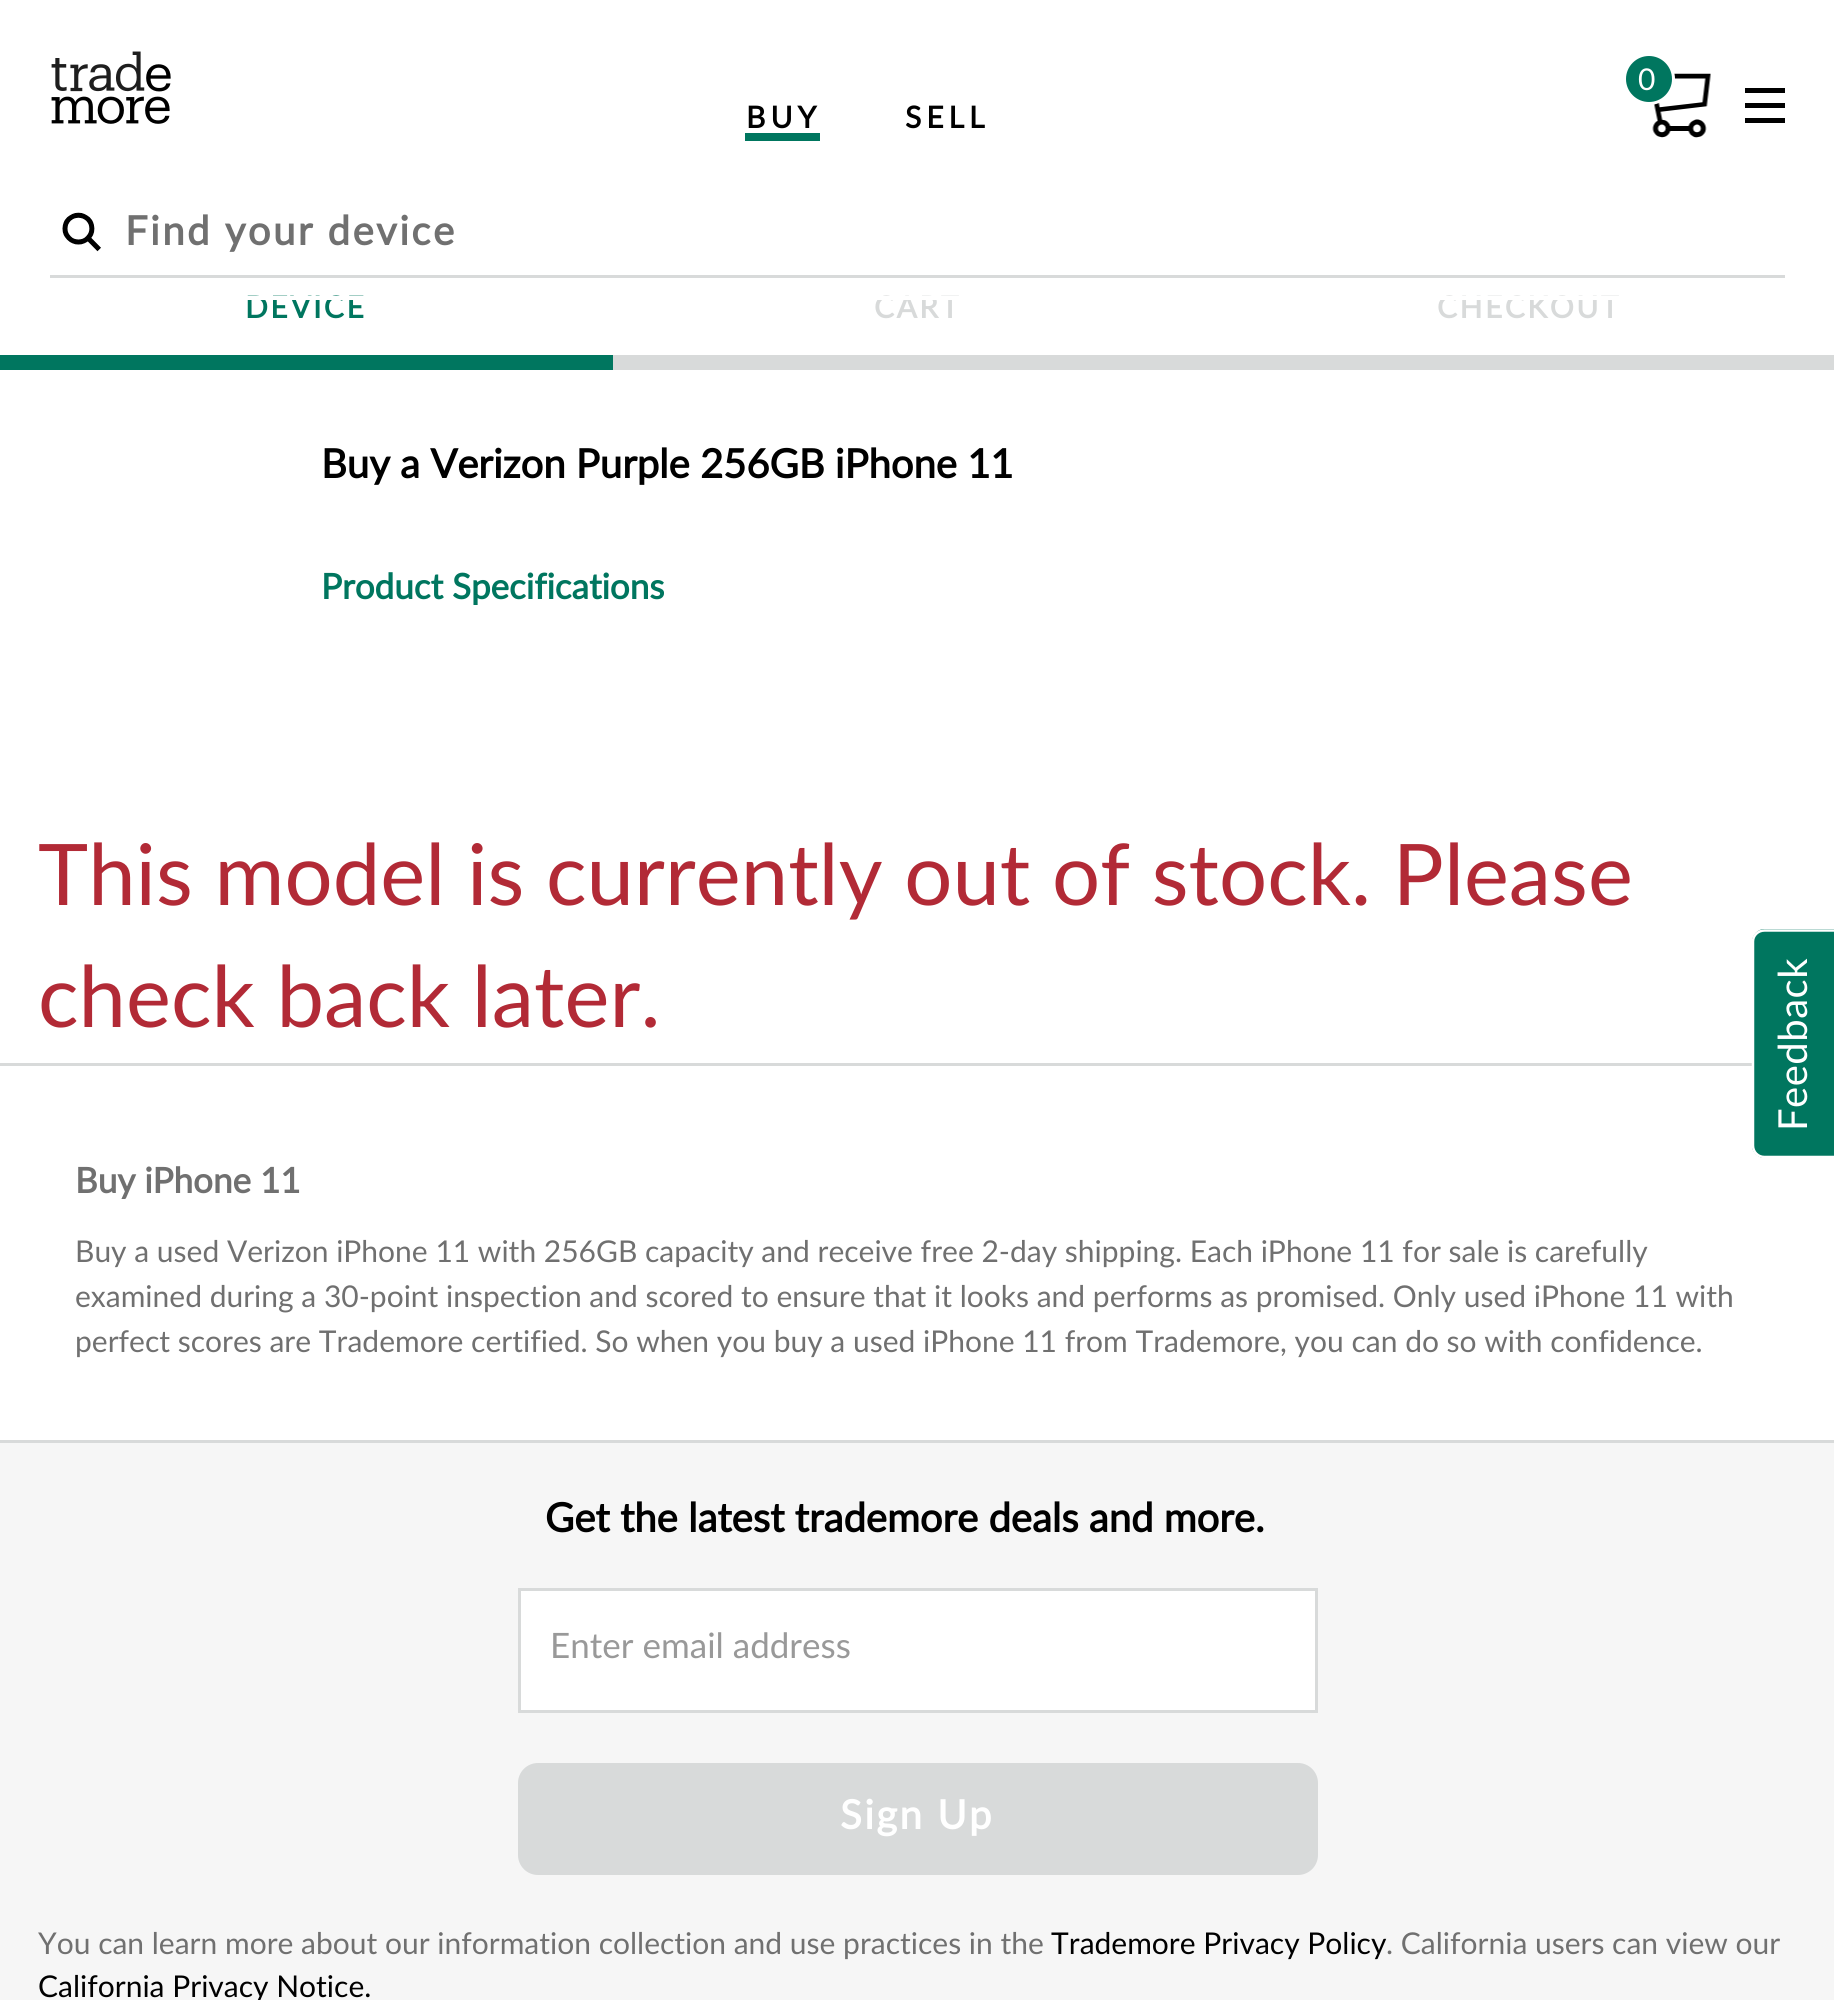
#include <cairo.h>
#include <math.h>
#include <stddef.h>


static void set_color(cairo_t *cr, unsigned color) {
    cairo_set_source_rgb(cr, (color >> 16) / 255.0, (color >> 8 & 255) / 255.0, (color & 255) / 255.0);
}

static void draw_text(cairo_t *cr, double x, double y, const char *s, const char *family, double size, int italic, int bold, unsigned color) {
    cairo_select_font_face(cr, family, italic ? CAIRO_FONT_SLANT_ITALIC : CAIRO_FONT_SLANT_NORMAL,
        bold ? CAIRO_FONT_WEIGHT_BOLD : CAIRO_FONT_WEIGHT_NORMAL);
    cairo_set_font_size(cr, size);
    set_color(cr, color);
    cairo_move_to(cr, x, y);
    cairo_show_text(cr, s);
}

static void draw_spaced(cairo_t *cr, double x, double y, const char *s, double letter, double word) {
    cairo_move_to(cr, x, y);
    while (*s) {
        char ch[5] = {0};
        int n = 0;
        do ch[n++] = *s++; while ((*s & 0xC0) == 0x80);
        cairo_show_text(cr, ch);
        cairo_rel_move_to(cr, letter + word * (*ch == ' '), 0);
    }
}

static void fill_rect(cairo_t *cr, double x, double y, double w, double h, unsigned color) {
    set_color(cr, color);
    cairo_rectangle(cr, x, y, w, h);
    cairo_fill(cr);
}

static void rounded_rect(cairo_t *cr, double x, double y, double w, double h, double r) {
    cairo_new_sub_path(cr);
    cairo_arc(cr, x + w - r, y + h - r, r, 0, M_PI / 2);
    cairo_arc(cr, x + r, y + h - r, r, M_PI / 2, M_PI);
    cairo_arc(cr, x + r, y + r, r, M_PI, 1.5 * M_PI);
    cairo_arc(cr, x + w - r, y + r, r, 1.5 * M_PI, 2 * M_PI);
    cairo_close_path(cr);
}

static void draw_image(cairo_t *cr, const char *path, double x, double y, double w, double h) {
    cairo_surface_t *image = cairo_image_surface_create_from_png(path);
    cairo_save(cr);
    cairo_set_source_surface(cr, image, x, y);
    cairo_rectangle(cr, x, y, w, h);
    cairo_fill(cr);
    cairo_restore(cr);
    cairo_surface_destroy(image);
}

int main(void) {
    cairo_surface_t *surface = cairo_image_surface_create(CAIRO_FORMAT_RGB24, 1834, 2000);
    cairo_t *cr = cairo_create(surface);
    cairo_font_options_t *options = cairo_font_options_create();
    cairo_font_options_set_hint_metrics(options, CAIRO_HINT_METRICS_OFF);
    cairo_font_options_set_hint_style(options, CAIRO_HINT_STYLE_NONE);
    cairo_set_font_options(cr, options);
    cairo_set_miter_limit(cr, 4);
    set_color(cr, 0xFFFFFF);
    cairo_paint(cr);
    cairo_select_font_face(cr, "Lato", CAIRO_FONT_SLANT_NORMAL, CAIRO_FONT_WEIGHT_BOLD);
    cairo_set_font_size(cr, 30);
    set_color(cr, 0x00765F);
    draw_spaced(cr, 245, 318, "DEVICE", 2.5, 0);
    set_color(cr, 0xD8DADA);
    draw_spaced(cr, 874, 318, "CART", 2.5, 0);
    draw_spaced(cr, 1437, 318, "CHECKOUT", 2.5, 0);
    fill_rect(cr, 247, 296, 1372, 4, 0xFFFFFF);
    draw_image(cr, "assets/img1.png", 51, 51, 120, 73);
    draw_image(cr, "assets/img2.png", 1652, 73, 59, 65);
    set_color(cr, 0x00765F);
    cairo_arc(cr, 1649, 79, 24.5, 0, 2 * M_PI);
    cairo_fill_preserve(cr);
    set_color(cr, 0xFFFFFF);
    cairo_set_line_width(cr, 3);
    cairo_stroke(cr);
    cairo_select_font_face(cr, "Lato", CAIRO_FONT_SLANT_NORMAL, CAIRO_FONT_WEIGHT_NORMAL);
    draw_spaced(cr, 1638, 90, "0", 5, 0);
    cairo_select_font_face(cr, "Lato", CAIRO_FONT_SLANT_NORMAL, CAIRO_FONT_WEIGHT_BOLD);
    set_color(cr, 0x000000);
    draw_spaced(cr, 746, 128, "BUY", 5, 0);
    fill_rect(cr, 745, 133, 75, 8, 0x00765F);
    set_color(cr, 0x000000);
    draw_spaced(cr, 905, 128, "SELL", 5, 0);
    fill_rect(cr, 1745, 88, 40, 5, 0x000000);
    fill_rect(cr, 1745, 103, 40, 5, 0x000000);
    fill_rect(cr, 1745, 118, 40, 5, 0x000000);
    draw_image(cr, "assets/img3.png", 62, 212, 39, 40);
    fill_rect(cr, 50, 275, 1735, 3, 0xD8DADA);
    cairo_set_font_size(cr, 40);
    set_color(cr, 0x707070);
    draw_spaced(cr, 125, 245, "Find your device", 2.5, 0);
    fill_rect(cr, 0, 355, 613, 15, 0x00765F);
    fill_rect(cr, 613, 355, 1221, 15, 0xD8DADA);
    draw_text(cr, 321, 478, "Buy a Verizon Purple 256GB iPhone 11", "Lato", 40, 0, 1, 0x000000);
    draw_text(cr, 321, 599, "Product Specifications", "Lato", 35, 0, 1, 0x00765F);
    draw_text(cr, 38, 905, "This model is currently out of stock. Please", "Lato", 85, 0, 0, 0xB22A36);
    draw_text(cr, 38, 1027, "check back later.", "Lato", 85, 0, 0, 0xB22A36);
    fill_rect(cr, 0, 1063, 1752, 3, 0xD8DADA);
    fill_rect(cr, 0, 1440, 1834, 3, 0xD8DADA);
    draw_text(cr, 75, 1193, "Buy iPhone 11", "Lato", 35, 0, 1, 0x707070);
    draw_text(cr, 75, 1262, "Buy a used Verizon iPhone 11 with 256GB capacity and receive free 2-day shipping. Each iPhone 11 for sale is carefully", "Lato", 30, 0, 0, 0x707070);
    draw_text(cr, 75, 1307, "examined during a 30-point inspection and scored to ensure that it looks and performs as promised. Only used iPhone 11 with", "Lato", 30, 0, 0, 0x707070);
    draw_text(cr, 75, 1352, "perfect scores are Trademore certified. So when you buy a used iPhone 11 from Trademore, you can do so with confidence.", "Lato", 30, 0, 0, 0x707070);
    set_color(cr, 0x00765F);
    cairo_new_path(cr);
    cairo_move_to(cr, 1752, 1146);
    cairo_line_to(cr, 1752, 942);
    cairo_curve_to(cr, 1752, 935, 1758, 929, 1764, 929);
    cairo_line_to(cr, 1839, 929);
    cairo_line_to(cr, 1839, 1158);
    cairo_line_to(cr, 1764, 1158);
    cairo_curve_to(cr, 1758, 1158, 1752, 1152, 1752, 1146);
    cairo_close_path(cr);
    cairo_fill(cr);
    cairo_new_path(cr);
    cairo_move_to(cr, 1753, 1145.5);
    cairo_line_to(cr, 1753, 941.5);
    cairo_curve_to(cr, 1753, 935.5, 1758, 930.5, 1764.5, 930.5);
    cairo_line_to(cr, 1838, 930.5);
    cairo_line_to(cr, 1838, 1157);
    cairo_line_to(cr, 1764.5, 1157);
    cairo_curve_to(cr, 1758, 1157, 1753, 1152, 1753, 1145.5);
    cairo_close_path(cr);
    set_color(cr, 0xFFFFFF);
    cairo_set_line_width(cr, 2.5);
    cairo_stroke(cr);
    cairo_set_font_size(cr, 40);
    cairo_save(cr);
    cairo_translate(cr, 1807, 1131);
    cairo_rotate(cr, -90 * M_PI / 180);
    draw_spaced(cr, 0, 0, "Feedback", 0.5, 0);
    cairo_restore(cr);
    fill_rect(cr, 0, 1443, 1834, 557, 0xF6F6F6);
    draw_text(cr, 545, 1532, "Get the latest trademore deals and more.", "Lato", 40, 0, 1, 0x000000);
    set_color(cr, 0xFFFFFF);
    cairo_rectangle(cr, 519.5, 1589.5, 797, 122);
    cairo_fill_preserve(cr);
    set_color(cr, 0xD8DADA);
    cairo_set_line_width(cr, 3);
    cairo_stroke(cr);
    draw_text(cr, 550, 1658, "Enter email address", "Lato", 35, 0, 0, 0x999999);
    set_color(cr, 0xD8DADA);
    rounded_rect(cr, 518, 1763, 800, 112, 20);
    cairo_fill(cr);
    cairo_select_font_face(cr, "Lato", CAIRO_FONT_SLANT_NORMAL, CAIRO_FONT_WEIGHT_BOLD);
    cairo_set_font_size(cr, 40);
    set_color(cr, 0xFFFFFF);
    draw_spaced(cr, 840, 1829, "Sign Up", 2.5, 0);
    draw_text(cr, 38, 1954, "You can learn more about our information collection and use practices in the", "Lato", 30, 0, 0, 0x707070);
    draw_text(cr, 1051, 1954, "Trademore Privacy Policy", "Lato", 30, 0, 0, 0x000000);
    draw_text(cr, 1386, 1954, ". California users can view our", "Lato", 30, 0, 0, 0x707070);
    draw_text(cr, 38, 1997, "California Privacy Notice.", "Lato", 30, 0, 0, 0x000000);
    cairo_surface_write_to_png(surface, "output.png");
    cairo_font_options_destroy(options);
    cairo_destroy(cr);
    cairo_surface_destroy(surface);
    return 0;
}
